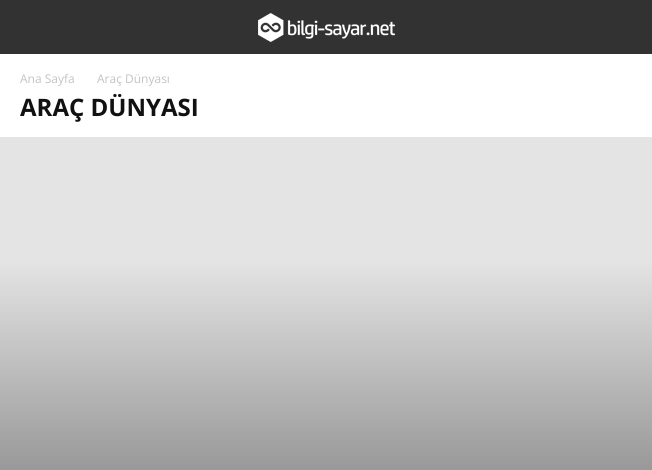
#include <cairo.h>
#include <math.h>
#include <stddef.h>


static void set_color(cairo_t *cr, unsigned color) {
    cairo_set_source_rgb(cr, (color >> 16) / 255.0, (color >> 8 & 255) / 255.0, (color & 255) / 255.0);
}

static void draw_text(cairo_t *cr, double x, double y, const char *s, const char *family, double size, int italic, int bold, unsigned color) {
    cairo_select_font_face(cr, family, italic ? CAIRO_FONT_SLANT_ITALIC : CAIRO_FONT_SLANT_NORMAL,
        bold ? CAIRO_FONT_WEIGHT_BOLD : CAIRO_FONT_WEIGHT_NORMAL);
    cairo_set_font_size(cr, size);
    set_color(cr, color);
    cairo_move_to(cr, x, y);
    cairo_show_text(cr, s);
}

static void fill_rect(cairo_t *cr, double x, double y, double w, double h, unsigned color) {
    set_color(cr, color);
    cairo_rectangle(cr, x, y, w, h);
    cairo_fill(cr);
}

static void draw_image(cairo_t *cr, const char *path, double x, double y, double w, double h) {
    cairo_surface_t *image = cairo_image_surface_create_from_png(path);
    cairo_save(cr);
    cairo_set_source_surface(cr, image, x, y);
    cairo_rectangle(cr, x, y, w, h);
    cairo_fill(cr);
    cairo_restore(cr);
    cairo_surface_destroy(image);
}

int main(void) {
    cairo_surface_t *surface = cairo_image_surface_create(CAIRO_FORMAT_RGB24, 652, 470);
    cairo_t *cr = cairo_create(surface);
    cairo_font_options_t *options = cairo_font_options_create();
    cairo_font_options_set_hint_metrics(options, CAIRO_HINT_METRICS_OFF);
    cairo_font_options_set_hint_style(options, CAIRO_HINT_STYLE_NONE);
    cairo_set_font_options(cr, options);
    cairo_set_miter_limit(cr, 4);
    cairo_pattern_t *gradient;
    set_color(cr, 0xFFFFFF);
    cairo_paint(cr);
    fill_rect(cr, 0, 0, 652, 54, 0x323232);
    draw_image(cr, "assets/img1.png", 258, 13, 137, 29);
    draw_text(cr, 20, 83, "Ana Sayfa", "Open Sans", 12, 0, 0, 0xC3C3C3);
    draw_text(cr, 97, 83, "Araç Dünyası", "Open Sans", 12, 0, 0, 0xC3C3C3);
    draw_text(cr, 20, 116, "ARAÇ DÜNYASI", "Open Sans", 24, 0, 1, 0x111111);
    gradient = cairo_pattern_create_linear(326, -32, 326, 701);
    cairo_pattern_add_color_stop_rgba(gradient, 0.4, 0.894, 0.894, 0.894, 1);
    cairo_pattern_add_color_stop_rgba(gradient, 1, 0.271, 0.271, 0.271, 1);
    cairo_set_source(cr, gradient);
    cairo_pattern_destroy(gradient);
    cairo_rectangle(cr, 0, 137, 652, 333);
    cairo_fill(cr);
    cairo_surface_write_to_png(surface, "output.png");
    cairo_font_options_destroy(options);
    cairo_destroy(cr);
    cairo_surface_destroy(surface);
    return 0;
}
